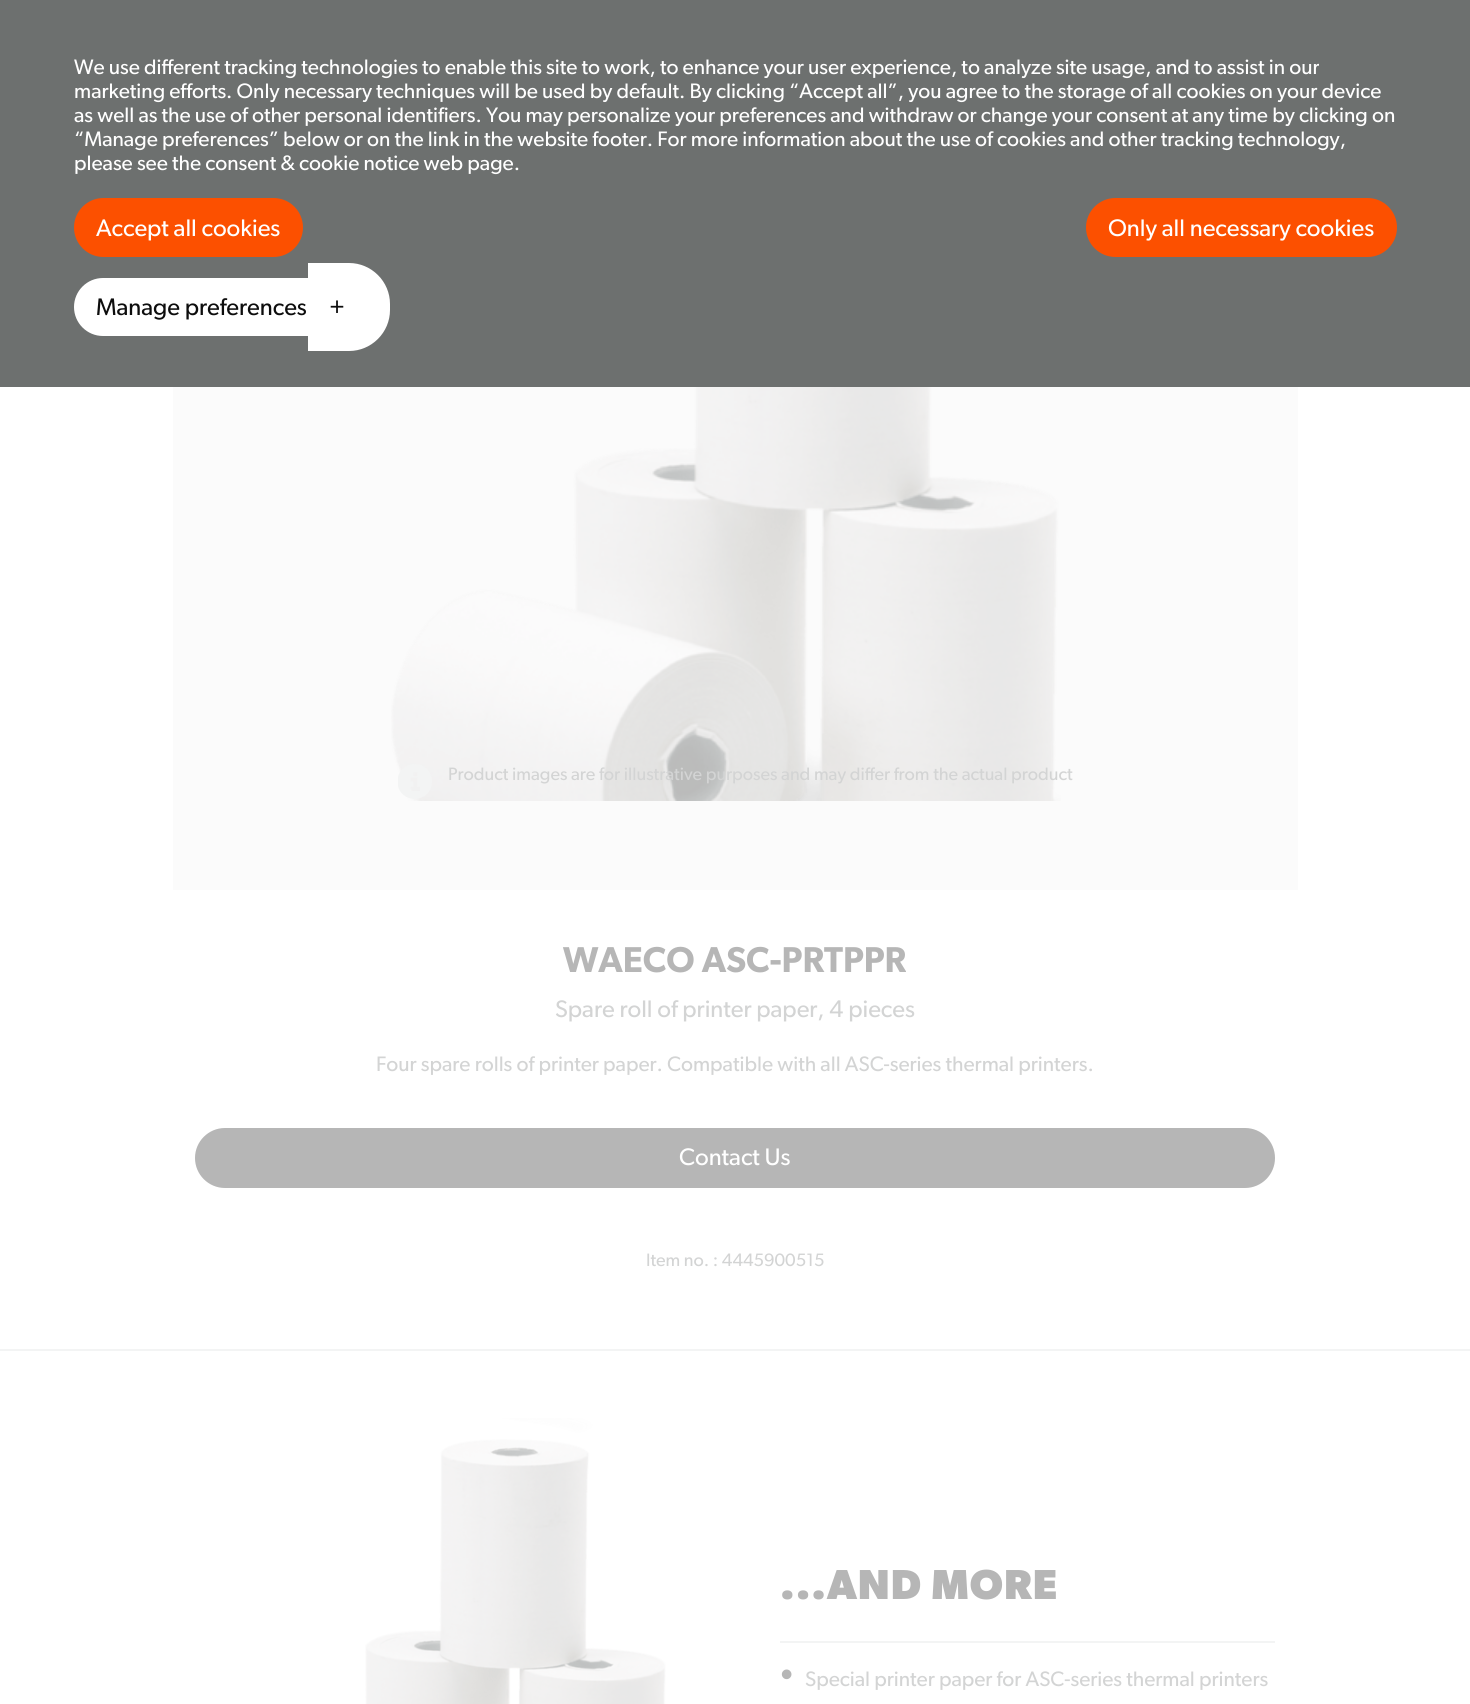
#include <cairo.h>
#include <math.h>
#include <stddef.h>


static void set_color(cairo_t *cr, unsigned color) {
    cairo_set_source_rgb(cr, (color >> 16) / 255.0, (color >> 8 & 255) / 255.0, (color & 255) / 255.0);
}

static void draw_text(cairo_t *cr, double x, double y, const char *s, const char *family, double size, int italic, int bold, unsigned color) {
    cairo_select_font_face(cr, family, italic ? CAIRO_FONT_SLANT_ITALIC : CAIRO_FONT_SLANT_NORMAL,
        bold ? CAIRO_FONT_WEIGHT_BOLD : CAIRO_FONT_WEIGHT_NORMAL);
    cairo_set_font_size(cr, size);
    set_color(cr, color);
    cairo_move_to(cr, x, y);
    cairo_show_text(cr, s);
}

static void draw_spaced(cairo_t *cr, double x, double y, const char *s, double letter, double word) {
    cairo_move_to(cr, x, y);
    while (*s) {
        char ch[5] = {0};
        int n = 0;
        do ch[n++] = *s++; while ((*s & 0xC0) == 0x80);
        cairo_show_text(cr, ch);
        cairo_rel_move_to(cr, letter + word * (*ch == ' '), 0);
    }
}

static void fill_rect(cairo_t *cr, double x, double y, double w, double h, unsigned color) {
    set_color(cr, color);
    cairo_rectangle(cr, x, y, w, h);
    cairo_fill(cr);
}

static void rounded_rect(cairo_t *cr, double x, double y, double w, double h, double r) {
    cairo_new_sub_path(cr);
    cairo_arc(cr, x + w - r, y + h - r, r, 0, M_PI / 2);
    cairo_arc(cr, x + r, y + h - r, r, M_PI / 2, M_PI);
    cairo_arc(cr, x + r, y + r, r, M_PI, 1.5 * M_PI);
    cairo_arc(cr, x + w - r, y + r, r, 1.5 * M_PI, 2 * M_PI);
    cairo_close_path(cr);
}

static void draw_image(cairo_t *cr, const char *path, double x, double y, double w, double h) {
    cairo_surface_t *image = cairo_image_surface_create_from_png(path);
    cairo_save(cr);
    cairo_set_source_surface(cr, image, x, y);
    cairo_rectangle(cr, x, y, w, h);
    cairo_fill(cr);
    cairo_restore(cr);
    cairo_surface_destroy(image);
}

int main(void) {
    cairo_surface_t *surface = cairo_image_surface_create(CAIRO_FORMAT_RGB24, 1470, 1704);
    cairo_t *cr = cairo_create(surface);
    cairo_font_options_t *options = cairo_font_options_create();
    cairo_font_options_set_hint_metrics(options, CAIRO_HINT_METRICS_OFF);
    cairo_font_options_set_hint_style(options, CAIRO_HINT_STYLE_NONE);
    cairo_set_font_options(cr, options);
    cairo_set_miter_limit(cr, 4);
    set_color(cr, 0xFFFFFF);
    cairo_paint(cr);
    fill_rect(cr, 0, 0, 1470, 387, 0x6D706F);
    draw_text(cr, 74, 74, "We use different tracking technologies to enable this site to work, to enhance your user experience, to analyze site usage, and to assist in our", "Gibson", 21, 0, 0, 0xFFFFFF);
    draw_text(cr, 74, 98, "marketing efforts. Only necessary techniques will be used by default. By clicking “Accept all”, you agree to the storage of all cookies on your device", "Gibson", 21, 0, 0, 0xFFFFFF);
    draw_text(cr, 74, 122, "as well as the use of other personal identifiers. You may personalize your preferences and withdraw or change your consent at any time by clicking on", "Gibson", 21, 0, 0, 0xFFFFFF);
    draw_text(cr, 74, 146, "“Manage preferences” below or on the link in the website footer. For more information about the use of cookies and other tracking technology,", "Gibson", 21, 0, 0, 0xFFFFFF);
    draw_text(cr, 74, 170, "please see the consent & cookie notice web page.", "Gibson", 21, 0, 0, 0xFFFFFF);
    set_color(cr, 0xFC5000);
    rounded_rect(cr, 74, 198, 229, 59, 29.5);
    cairo_fill(cr);
    draw_text(cr, 96, 236, "Accept all cookies", "Gibson", 24, 0, 0, 0xFFFFFF);
    set_color(cr, 0xFC5000);
    rounded_rect(cr, 1086, 198, 311, 59, 29.5);
    cairo_fill(cr);
    draw_text(cr, 1108, 236, "Only all necessary cookies", "Gibson", 24, 0, 0, 0xFFFFFF);
    cairo_new_path(cr);
    cairo_move_to(cr, 103, 278);
    cairo_line_to(cr, 308, 278);
    cairo_line_to(cr, 308, 336);
    cairo_line_to(cr, 103, 336);
    cairo_curve_to(cr, 87, 336, 74, 323, 74, 307);
    cairo_curve_to(cr, 74, 291, 87, 278, 103, 278);
    cairo_close_path(cr);
    cairo_fill(cr);
    cairo_new_path(cr);
    cairo_move_to(cr, 308, 263);
    cairo_line_to(cr, 349, 263);
    cairo_curve_to(cr, 371.5, 263, 390, 281.5, 390, 304);
    cairo_line_to(cr, 390, 310);
    cairo_curve_to(cr, 390, 332.5, 371.5, 351, 349, 351);
    cairo_line_to(cr, 308, 351);
    cairo_close_path(cr);
    cairo_fill(cr);
    draw_text(cr, 96, 315, "Manage preferences", "Gibson", 24, 0, 0, 0x0D0D0D);
    draw_text(cr, 329, 315, "+", "Gibson", 24, 0, 0, 0x0D0D0D);
    fill_rect(cr, 0, 1349, 1470, 2, 0xF3F4F4);
    fill_rect(cr, 173, 387, 1125, 503, 0xFBFBFB);
    draw_image(cr, "assets/img1.png", 391, 387, 670, 414);
    draw_image(cr, "assets/img2.png", 398, 764, 34, 35);
    draw_text(cr, 448, 780, "Product images are for illustrative purposes and may differ from the actual product", "Gibson", 18, 0, 0, 0xD3D4D4);
    draw_text(cr, 563, 972, "WAECO ASC-PRTPPR", "Gibson SemiBold", 36, 0, 0, 0xB6B6B6);
    draw_text(cr, 555, 1017, "Spare roll of printer paper, 4 pieces", "Gibson", 24, 0, 0, 0xD3D4D4);
    draw_text(cr, 376, 1071, "Four spare rolls of printer paper. Compatible with all ASC-series thermal printers.", "Gibson", 21, 0, 0, 0xD3D4D4);
    set_color(cr, 0xB6B6B6);
    rounded_rect(cr, 196, 1129, 1078, 58, 29);
    cairo_fill_preserve(cr);
    cairo_stroke(cr);
    draw_text(cr, 679, 1165, "Contact Us", "Gibson", 24, 0, 0, 0xFFFFFF);
    draw_text(cr, 646, 1266, "Item no. : 4445900515", "Gibson", 18, 0, 0, 0xD3D4D4);
    draw_image(cr, "assets/img3.png", 365, 1418, 301, 286);
    cairo_select_font_face(cr, "Gibson", CAIRO_FONT_SLANT_NORMAL, CAIRO_FONT_WEIGHT_BOLD);
    cairo_set_font_size(cr, 42);
    set_color(cr, 0xB6B6B6);
    draw_spaced(cr, 780, 1599, "...AND MORE", 1, 0);
    fill_rect(cr, 780, 1641, 495, 2, 0xF3F4F4);
    draw_text(cr, 778, 1686, "•", "Gibson", 32, 0, 0, 0xB6B6B6);
    draw_text(cr, 805, 1686, "Special printer paper for ASC-series thermal printers", "Gibson", 21, 0, 0, 0xD3D4D4);
    cairo_surface_write_to_png(surface, "output.png");
    cairo_font_options_destroy(options);
    cairo_destroy(cr);
    cairo_surface_destroy(surface);
    return 0;
}
